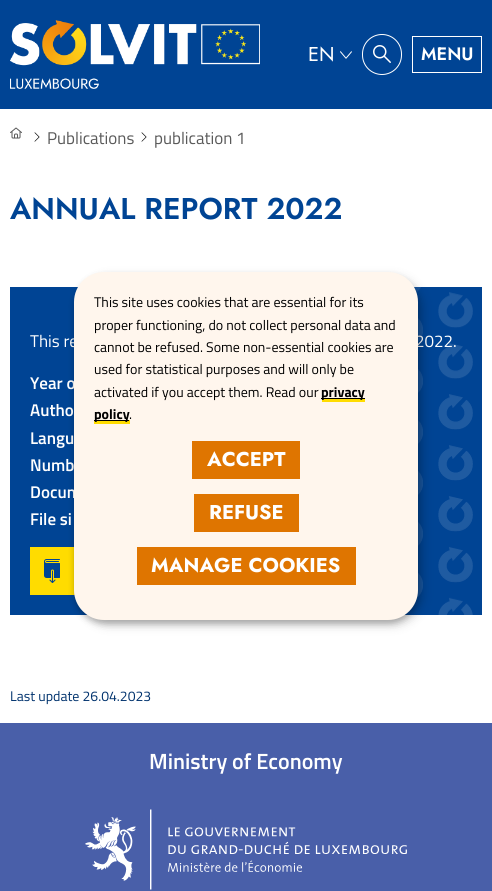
#include <cairo.h>
#include <math.h>
#include <stddef.h>


static void set_color(cairo_t *cr, unsigned color) {
    cairo_set_source_rgb(cr, (color >> 16) / 255.0, (color >> 8 & 255) / 255.0, (color & 255) / 255.0);
}

static void draw_text(cairo_t *cr, double x, double y, const char *s, const char *family, double size, int italic, int bold, unsigned color) {
    cairo_select_font_face(cr, family, italic ? CAIRO_FONT_SLANT_ITALIC : CAIRO_FONT_SLANT_NORMAL,
        bold ? CAIRO_FONT_WEIGHT_BOLD : CAIRO_FONT_WEIGHT_NORMAL);
    cairo_set_font_size(cr, size);
    set_color(cr, color);
    cairo_move_to(cr, x, y);
    cairo_show_text(cr, s);
}

static void fill_rect(cairo_t *cr, double x, double y, double w, double h, unsigned color) {
    set_color(cr, color);
    cairo_rectangle(cr, x, y, w, h);
    cairo_fill(cr);
}

static void rounded_rect(cairo_t *cr, double x, double y, double w, double h, double r) {
    cairo_new_sub_path(cr);
    cairo_arc(cr, x + w - r, y + h - r, r, 0, M_PI / 2);
    cairo_arc(cr, x + r, y + h - r, r, M_PI / 2, M_PI);
    cairo_arc(cr, x + r, y + r, r, M_PI, 1.5 * M_PI);
    cairo_arc(cr, x + w - r, y + r, r, 1.5 * M_PI, 2 * M_PI);
    cairo_close_path(cr);
}

static void draw_shadow(cairo_t *cr, double x, double y, double w, double h, double r, double blur, double alpha) {
    cairo_push_group_with_content(cr, CAIRO_CONTENT_ALPHA);
    cairo_set_operator(cr, CAIRO_OPERATOR_SOURCE);
    for (int i = 15; i >= -15 && fmin(w, h) + blur * i / 3 > 0; i -= 2) {
        double e = blur * i / 6;
        cairo_set_source_rgba(cr, 0, 0, 0, alpha * erfc((i - 1) / 8.5) / 2);
        rounded_rect(cr, x - e, y - e, w + 2 * e, h + 2 * e, fmax(0, fmin(r + e + blur * .6, fmin(w, h) / 2 + e)));
        cairo_fill(cr);
    }
    cairo_pattern_t *soft = cairo_pop_group(cr);
    cairo_mask(cr, soft);
    cairo_pattern_destroy(soft);
}

static void draw_image(cairo_t *cr, const char *path, double x, double y, double w, double h) {
    cairo_surface_t *image = cairo_image_surface_create_from_png(path);
    cairo_save(cr);
    cairo_set_source_surface(cr, image, x, y);
    cairo_rectangle(cr, x, y, w, h);
    cairo_fill(cr);
    cairo_restore(cr);
    cairo_surface_destroy(image);
}

int main(void) {
    cairo_surface_t *surface = cairo_image_surface_create(CAIRO_FORMAT_RGB24, 492, 891);
    cairo_t *cr = cairo_create(surface);
    cairo_font_options_t *options = cairo_font_options_create();
    cairo_font_options_set_hint_metrics(options, CAIRO_HINT_METRICS_OFF);
    cairo_font_options_set_hint_style(options, CAIRO_HINT_STYLE_NONE);
    cairo_set_font_options(cr, options);
    cairo_set_miter_limit(cr, 4);
    set_color(cr, 0xFFFFFF);
    cairo_paint(cr);
    fill_rect(cr, 0, 0, 492, 109, 0x004494);
    draw_image(cr, "assets/img1.png", 10, 20, 250, 69);
    draw_text(cr, 308, 61, "EN", "Jost", 20, 0, 0, 0xFFFFFF);
    draw_image(cr, "assets/img2.png", 340, 51, 12, 8);
    rounded_rect(cr, 362.5, 34.5, 39, 40, 19.5);
    cairo_set_line_width(cr, 1);
    cairo_stroke(cr);
    draw_image(cr, "assets/img3.png", 373, 45, 18, 18);
    cairo_rectangle(cr, 412.5, 36.5, 69, 36);
    cairo_stroke(cr);
    draw_text(cr, 421, 60, "MENU", "Jost SemiBold", 18, 0, 0, 0xFFFFFF);
    draw_image(cr, "assets/img4.png", 10, 127, 12, 12);
    draw_image(cr, "assets/img5.png", 34, 132, 6, 10);
    draw_text(cr, 47, 144, "Publications", "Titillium", 17, 0, 0, 0x5A5A5A);
    draw_image(cr, "assets/img5.png", 141, 132, 6, 10);
    draw_text(cr, 154, 144, "publication 1", "Titillium", 17, 0, 0, 0x5A5A5A);
    draw_text(cr, 10, 219, "ANNUAL REPORT 2022", "Jost SemiBold", 30, 0, 0, 0x004494);
    fill_rect(cr, 10, 287, 472, 328, 0x004494);
    draw_image(cr, "assets/img6.png", 404, 287, 69, 328);
    draw_text(cr, 30, 347, "This re", "Titillium", 17, 0, 0, 0xFFFFFF);
    draw_text(cr, 415, 347, "2022.", "Titillium", 17, 0, 0, 0xFFFFFF);
    draw_text(cr, 30, 389, "Year o", "Titillium SemiBold", 17, 0, 0, 0xFFFFFF);
    draw_text(cr, 30, 416, "Autho", "Titillium SemiBold", 17, 0, 0, 0xFFFFFF);
    draw_text(cr, 30, 444, "Langu", "Titillium SemiBold", 17, 0, 0, 0xFFFFFF);
    draw_text(cr, 30, 471, "Numb", "Titillium SemiBold", 17, 0, 0, 0xFFFFFF);
    draw_text(cr, 30, 498, "Docum", "Titillium SemiBold", 17, 0, 0, 0xFFFFFF);
    draw_text(cr, 30, 525, "File si", "Titillium SemiBold", 17, 0, 0, 0xFFFFFF);
    fill_rect(cr, 30, 547, 45, 48, 0xFFDC00);
    draw_image(cr, "assets/img7.png", 44, 559, 16, 24);
    draw_text(cr, 10, 701, "Last update 26.04.2023", "Titillium", 14, 0, 0, 0x00326D);
    fill_rect(cr, 0, 723, 492, 168, 0x495FA9);
    draw_text(cr, 149, 769, "Ministry of Economy", "Titillium SemiBold", 22, 0, 0, 0xFFFFFF);
    draw_image(cr, "assets/img8.png", 85, 809, 322, 81);
    set_color(cr, 0x000000);
    draw_shadow(cr, 79, 277, 344, 348, 30, 5, 0.19);
    draw_shadow(cr, 74, 276, 344, 348, 30, 3, 0.2);
    set_color(cr, 0xFFF6ED);
    rounded_rect(cr, 74, 272, 344, 348, 30);
    cairo_fill(cr);
    draw_text(cr, 94, 307, "This site uses cookies that are essential for its", "Titillium", 14, 0, 0, 0x000000);
    draw_text(cr, 94, 330, "proper functioning, do not collect personal data and", "Titillium", 14, 0, 0, 0x000000);
    draw_text(cr, 94, 352, "cannot be refused. Some non-essential cookies are", "Titillium", 14, 0, 0, 0x000000);
    draw_text(cr, 94, 374, "used for statistical purposes and will only be", "Titillium", 14, 0, 0, 0x000000);
    draw_text(cr, 94, 397, "activated if you accept them. Read our", "Titillium", 14, 0, 0, 0x000000);
    fill_rect(cr, 322, 399, 43, 3, 0xFFDC00);
    fill_rect(cr, 321, 398, 44, 1, 0x000000);
    draw_text(cr, 321, 397, "privacy", "Titillium", 14, 0, 1, 0x000000);
    fill_rect(cr, 94, 420, 36, 4, 0xFFDC00);
    fill_rect(cr, 94, 420, 35, 1, 0x000000);
    draw_text(cr, 94, 419, "policy", "Titillium", 14, 0, 1, 0x000000);
    draw_text(cr, 129, 419, ".", "Titillium", 14, 0, 0, 0x000000);
    fill_rect(cr, 192, 441, 108, 38, 0xDF7500);
    draw_text(cr, 207, 466, "ACCEPT", "Jost", 20, 0, 1, 0xFFFFFF);
    fill_rect(cr, 194, 494, 105, 38, 0xDF7500);
    draw_text(cr, 209, 519, "REFUSE", "Jost", 20, 0, 1, 0xFFFFFF);
    fill_rect(cr, 137, 547, 219, 38, 0xDF7500);
    draw_text(cr, 151, 572, "MANAGE COOKIES", "Jost", 20, 0, 1, 0xFFFFFF);
    cairo_surface_write_to_png(surface, "output.png");
    cairo_font_options_destroy(options);
    cairo_destroy(cr);
    cairo_surface_destroy(surface);
    return 0;
}
